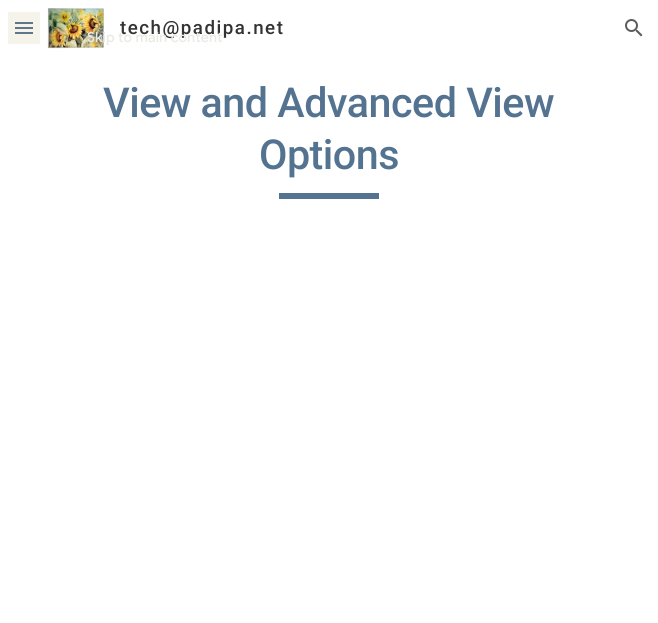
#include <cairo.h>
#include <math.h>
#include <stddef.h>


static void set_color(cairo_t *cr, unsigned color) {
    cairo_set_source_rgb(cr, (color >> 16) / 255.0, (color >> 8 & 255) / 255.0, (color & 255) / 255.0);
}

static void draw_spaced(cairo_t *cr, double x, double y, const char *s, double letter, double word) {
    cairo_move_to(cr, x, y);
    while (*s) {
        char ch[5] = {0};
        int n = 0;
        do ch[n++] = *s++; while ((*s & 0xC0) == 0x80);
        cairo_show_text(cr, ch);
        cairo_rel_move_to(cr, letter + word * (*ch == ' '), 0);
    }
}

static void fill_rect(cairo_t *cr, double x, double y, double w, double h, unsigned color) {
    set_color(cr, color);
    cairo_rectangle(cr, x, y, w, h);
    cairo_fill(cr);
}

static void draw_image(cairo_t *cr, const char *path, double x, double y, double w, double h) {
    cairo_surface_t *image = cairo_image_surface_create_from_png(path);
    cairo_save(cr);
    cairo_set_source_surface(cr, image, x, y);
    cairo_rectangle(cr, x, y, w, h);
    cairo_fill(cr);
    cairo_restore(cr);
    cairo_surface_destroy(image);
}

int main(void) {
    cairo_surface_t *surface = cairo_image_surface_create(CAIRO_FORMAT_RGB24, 658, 623);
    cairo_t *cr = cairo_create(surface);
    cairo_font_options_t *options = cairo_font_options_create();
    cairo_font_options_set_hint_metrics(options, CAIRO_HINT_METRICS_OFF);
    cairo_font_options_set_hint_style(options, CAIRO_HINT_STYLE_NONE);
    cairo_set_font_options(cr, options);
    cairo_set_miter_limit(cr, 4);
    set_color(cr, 0xFFFFFF);
    cairo_paint(cr);
    fill_rect(cr, 8, 12, 32, 32, 0xF6F3EA);
    fill_rect(cr, 15, 22, 18, 2, 0x5F7889);
    fill_rect(cr, 15, 27, 18, 2, 0x5F7889);
    fill_rect(cr, 15, 32, 18, 2, 0x5F7889);
    draw_image(cr, "assets/img1.png", 47, 8, 57, 41);
    cairo_select_font_face(cr, "Roboto Medium", CAIRO_FONT_SLANT_NORMAL, CAIRO_FONT_WEIGHT_NORMAL);
    cairo_set_font_size(cr, 18.75);
    set_color(cr, 0x333333);
    draw_spaced(cr, 120, 34, "tech@padipa.net", 1.5, 0);
    draw_image(cr, "assets/img2.png", 625, 19, 18, 18);
    cairo_set_font_size(cr, 41.25);
    set_color(cr, 0x537391);
    draw_spaced(cr, 103, 117, "View and Advanced View", -0.5, 0);
    draw_spaced(cr, 259, 169, "Options", -0.5, 0);
    fill_rect(cr, 279, 193, 100, 6, 0x537391);
    cairo_select_font_face(cr, "Google Sans Medium", CAIRO_FONT_SLANT_NORMAL, CAIRO_FONT_WEIGHT_NORMAL);
    cairo_set_font_size(cr, 14);
    set_color(cr, 0xEAE9E4);
    draw_spaced(cr, 87, 42, "Skip to main content", 0.1, 0);
    cairo_surface_write_to_png(surface, "output.png");
    cairo_font_options_destroy(options);
    cairo_destroy(cr);
    cairo_surface_destroy(surface);
    return 0;
}
